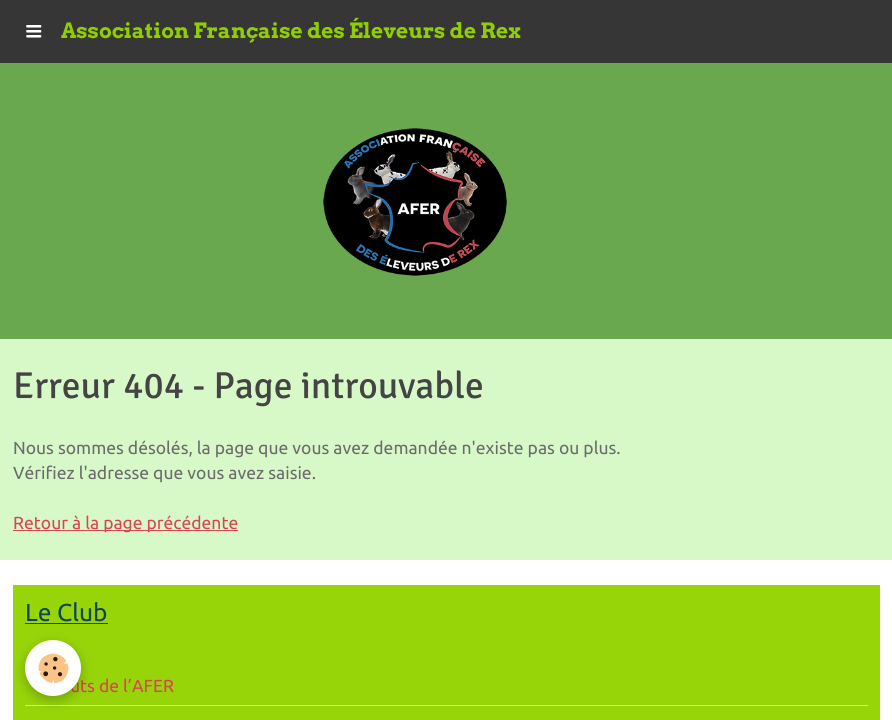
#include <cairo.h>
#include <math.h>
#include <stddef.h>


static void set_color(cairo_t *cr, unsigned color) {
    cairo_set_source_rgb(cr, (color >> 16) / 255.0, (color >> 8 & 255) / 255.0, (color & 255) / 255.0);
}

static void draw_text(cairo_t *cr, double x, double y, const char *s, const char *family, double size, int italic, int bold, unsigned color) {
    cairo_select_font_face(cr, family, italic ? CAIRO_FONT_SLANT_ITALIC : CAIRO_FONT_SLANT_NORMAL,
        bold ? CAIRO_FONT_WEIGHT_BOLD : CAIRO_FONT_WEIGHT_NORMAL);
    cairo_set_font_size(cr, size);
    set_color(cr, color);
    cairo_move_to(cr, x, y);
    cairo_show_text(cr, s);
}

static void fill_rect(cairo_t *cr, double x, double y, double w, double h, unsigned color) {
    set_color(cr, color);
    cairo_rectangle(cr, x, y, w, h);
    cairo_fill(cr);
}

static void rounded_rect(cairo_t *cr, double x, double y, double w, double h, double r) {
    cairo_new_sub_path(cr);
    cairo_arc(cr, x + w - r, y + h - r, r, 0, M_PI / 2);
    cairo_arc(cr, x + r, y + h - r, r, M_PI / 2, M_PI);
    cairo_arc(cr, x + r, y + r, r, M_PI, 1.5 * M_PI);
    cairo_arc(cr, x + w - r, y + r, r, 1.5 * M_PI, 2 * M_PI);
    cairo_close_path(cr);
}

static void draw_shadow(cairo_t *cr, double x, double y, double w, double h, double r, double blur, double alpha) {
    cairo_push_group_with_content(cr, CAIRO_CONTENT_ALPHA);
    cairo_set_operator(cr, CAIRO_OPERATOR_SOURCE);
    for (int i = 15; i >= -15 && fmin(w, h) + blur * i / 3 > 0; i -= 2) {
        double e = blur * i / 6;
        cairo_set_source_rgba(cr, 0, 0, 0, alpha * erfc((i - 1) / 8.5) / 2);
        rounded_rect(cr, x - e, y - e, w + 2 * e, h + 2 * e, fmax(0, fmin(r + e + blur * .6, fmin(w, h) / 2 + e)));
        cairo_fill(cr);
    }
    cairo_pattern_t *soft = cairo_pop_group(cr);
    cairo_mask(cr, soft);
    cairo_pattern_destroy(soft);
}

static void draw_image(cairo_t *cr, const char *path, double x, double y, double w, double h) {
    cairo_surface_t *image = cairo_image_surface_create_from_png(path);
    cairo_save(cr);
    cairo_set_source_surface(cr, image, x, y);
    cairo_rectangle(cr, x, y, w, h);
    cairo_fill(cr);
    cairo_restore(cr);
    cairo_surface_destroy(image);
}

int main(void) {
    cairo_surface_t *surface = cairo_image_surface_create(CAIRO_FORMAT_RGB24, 892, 720);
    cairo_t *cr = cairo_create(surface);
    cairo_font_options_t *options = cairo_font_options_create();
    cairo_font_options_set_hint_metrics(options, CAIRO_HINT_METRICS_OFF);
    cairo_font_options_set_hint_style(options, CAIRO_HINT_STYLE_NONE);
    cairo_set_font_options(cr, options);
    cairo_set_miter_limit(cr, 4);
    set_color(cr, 0xD7F9C8);
    cairo_paint(cr);
    fill_rect(cr, 0, 0, 892, 63, 0x363636);
    draw_image(cr, "assets/img1.png", 26, 25, 16, 13);
    draw_text(cr, 61, 38, "Association Française des Éleveurs de Rex", "Arvo", 21, 0, 1, 0x8FCE00);
    fill_rect(cr, 0, 63, 892, 276, 0x6AA84F);
    draw_image(cr, "assets/img2.png", 323, 128, 184, 148);
    draw_text(cr, 13, 398, "Erreur 404 - Page introuvable", "Signika", 37.5, 0, 0, 0x444444);
    draw_text(cr, 13, 454, "Nous sommes désolés, la page que vous avez demandée n'existe pas ou plus.", "Ubuntu", 17.5, 0, 0, 0x6B6B6B);
    draw_text(cr, 13, 479, "Vérifiez l'adresse que vous avez saisie.", "Ubuntu", 17.5, 0, 0, 0x6B6B6B);
    fill_rect(cr, 13, 530, 225, 1, 0xDA4453);
    draw_text(cr, 13, 529, "Retour à la page précédente", "Ubuntu", 17.5, 0, 0, 0xDA4453);
    fill_rect(cr, 0, 560, 892, 160, 0xFFFFFF);
    fill_rect(cr, 13, 585, 867, 135, 0x97D509);
    draw_text(cr, 25, 621, "Le Club", "Ubuntu", 24.5, 0, 0, 0x10445C);
    fill_rect(cr, 25, 623, 83, 1, 0x10445C);
    fill_rect(cr, 25, 705, 843, 1, 0xDADADA);
    draw_text(cr, 70, 692, "uts de l’AFER", "Ubuntu", 17.5, 0, 0, 0xDA4453);
    set_color(cr, 0x000000);
    draw_shadow(cr, 25, 644, 56, 56, 28, 6, 0.24);
    set_color(cr, 0xFFFFFF);
    cairo_arc(cr, 53, 668, 28, 0, 2 * M_PI);
    cairo_fill(cr);
    draw_image(cr, "assets/img3.png", 38, 653, 31, 30);
    cairo_surface_write_to_png(surface, "output.png");
    cairo_font_options_destroy(options);
    cairo_destroy(cr);
    cairo_surface_destroy(surface);
    return 0;
}
